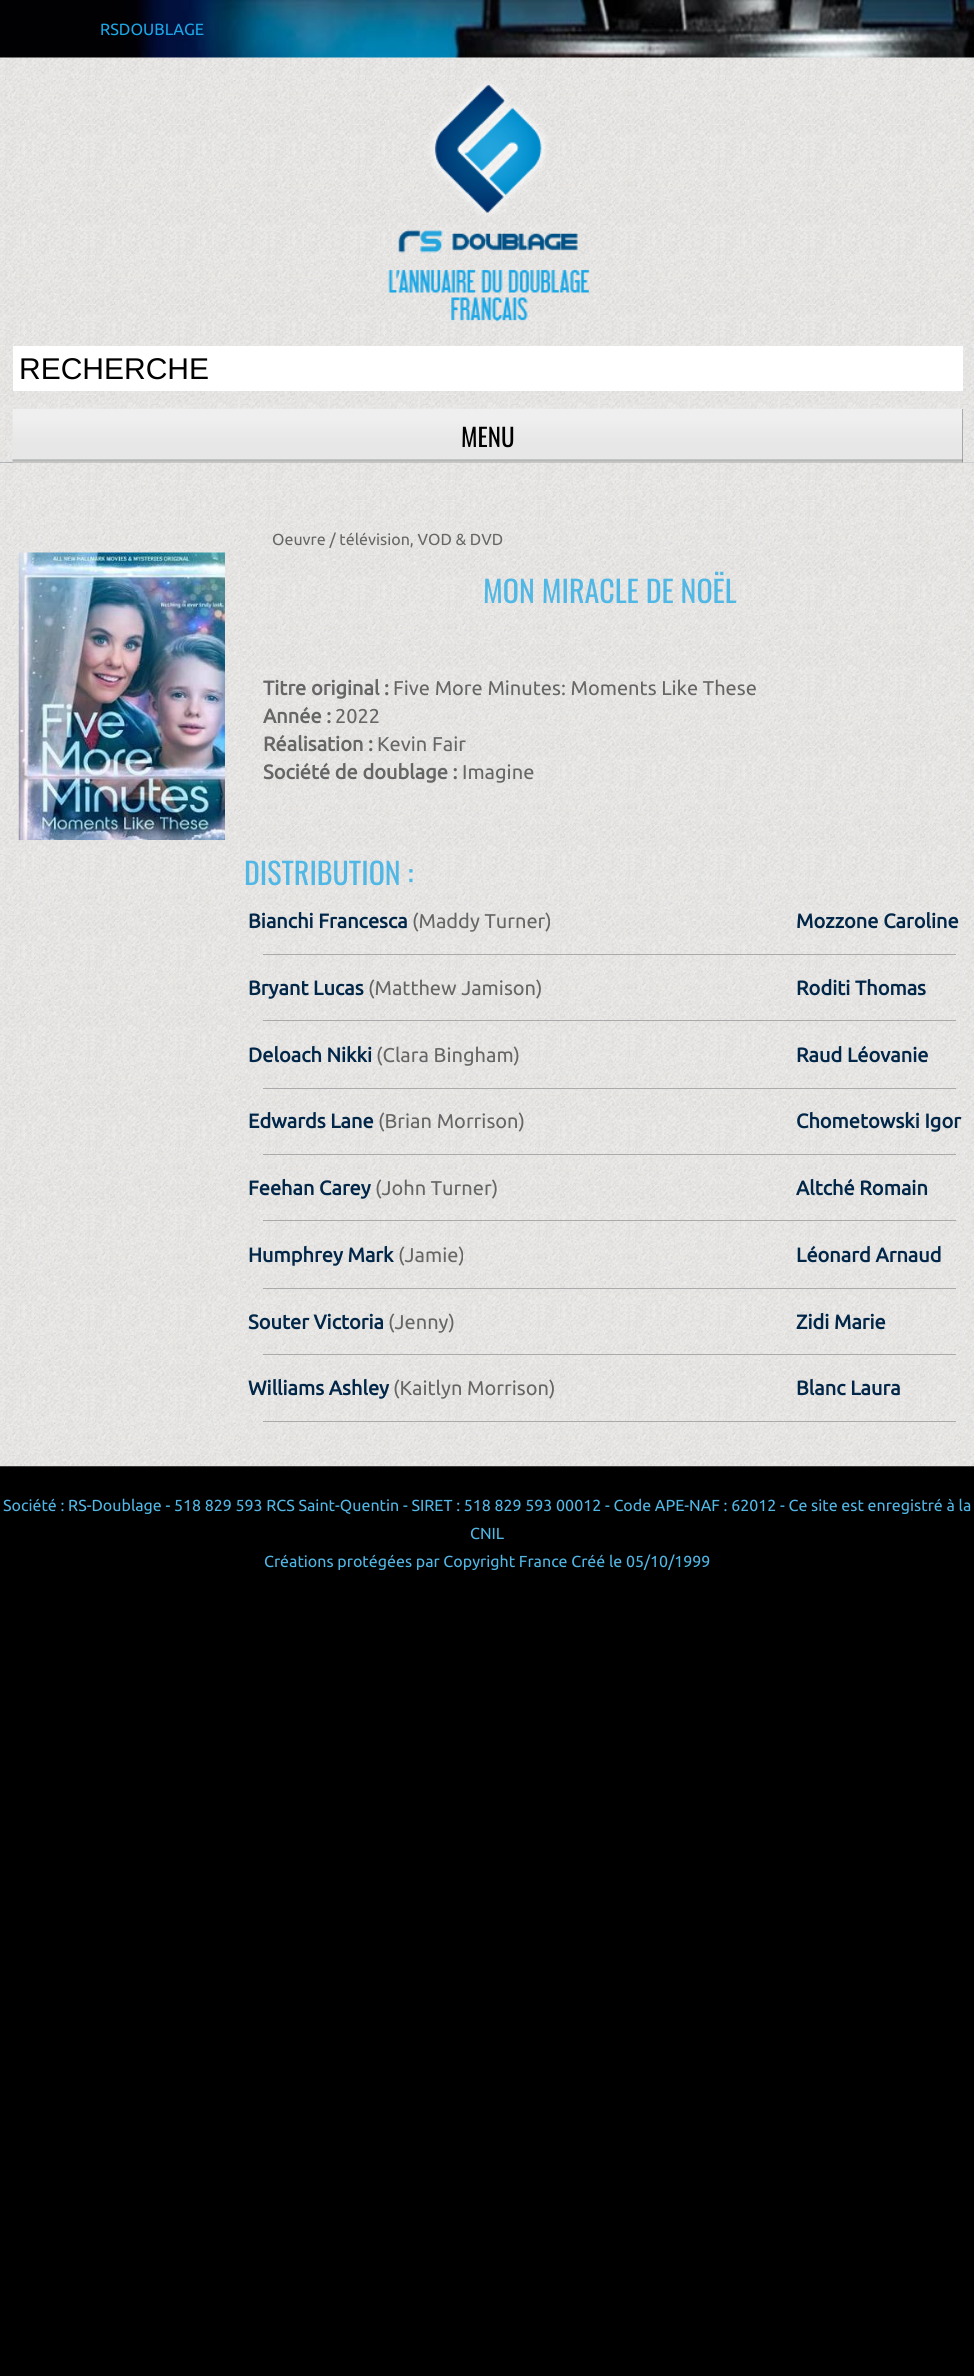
#include <cairo.h>
#include <math.h>
#include <stddef.h>


static void set_color(cairo_t *cr, unsigned color) {
    cairo_set_source_rgb(cr, (color >> 16) / 255.0, (color >> 8 & 255) / 255.0, (color & 255) / 255.0);
}

static void draw_text(cairo_t *cr, double x, double y, const char *s, const char *family, double size, int italic, int bold, unsigned color) {
    cairo_select_font_face(cr, family, italic ? CAIRO_FONT_SLANT_ITALIC : CAIRO_FONT_SLANT_NORMAL,
        bold ? CAIRO_FONT_WEIGHT_BOLD : CAIRO_FONT_WEIGHT_NORMAL);
    cairo_set_font_size(cr, size);
    set_color(cr, color);
    cairo_move_to(cr, x, y);
    cairo_show_text(cr, s);
}

static void fill_rect(cairo_t *cr, double x, double y, double w, double h, unsigned color) {
    set_color(cr, color);
    cairo_rectangle(cr, x, y, w, h);
    cairo_fill(cr);
}

static void draw_image(cairo_t *cr, const char *path, double x, double y, double w, double h) {
    cairo_surface_t *image = cairo_image_surface_create_from_png(path);
    cairo_save(cr);
    cairo_set_source_surface(cr, image, x, y);
    cairo_rectangle(cr, x, y, w, h);
    cairo_fill(cr);
    cairo_restore(cr);
    cairo_surface_destroy(image);
}

int main(void) {
    cairo_surface_t *surface = cairo_image_surface_create(CAIRO_FORMAT_RGB24, 974, 2376);
    cairo_t *cr = cairo_create(surface);
    cairo_font_options_t *options = cairo_font_options_create();
    cairo_font_options_set_hint_metrics(options, CAIRO_HINT_METRICS_OFF);
    cairo_font_options_set_hint_style(options, CAIRO_HINT_STYLE_NONE);
    cairo_set_font_options(cr, options);
    cairo_set_miter_limit(cr, 4);
    set_color(cr, 0x000000);
    cairo_paint(cr);
    draw_image(cr, "assets/img1.png", 0, 0, 974, 463);
    draw_text(cr, 100, 35, "RSDOUBLAGE", "Ubuntu", 16.25, 0, 0, 0x1BA6E5);
    draw_image(cr, "assets/img2.png", 0, 57, 974, 406);
    draw_image(cr, "assets/img3.png", 388, 81, 202, 241);
    fill_rect(cr, 13, 346, 950, 45, 0xFFFFFF);
    draw_text(cr, 19, 379, "RECHERCHE", "Liberation Sans", 30, 0, 0, 0x000000);
    fill_rect(cr, 13, 409, 950, 54, 0x666666);
    draw_image(cr, "assets/img4.png", 12, 408, 951, 55);
    draw_text(cr, 461, 447, "MENU", "Oswald", 25, 0, 0, 0x000000);
    draw_image(cr, "assets/img5.png", 0, 462, 974, 38);
    draw_image(cr, "assets/img6.png", 0, 500, 974, 967);
    draw_text(cr, 272, 545, "Oeuvre / télévision, VOD & DVD", "Ubuntu", 16, 0, 0, 0x666666);
    draw_image(cr, "assets/img7.png", 18, 552, 207, 288);
    draw_text(cr, 483, 603, "MON MIRACLE DE NOËL", "Oswald", 30, 0, 0, 0x51B7E5);
    draw_text(cr, 263, 695, "Titre original :", "Ubuntu", 20, 0, 1, 0x666666);
    draw_text(cr, 393, 695, "Five More Minutes: Moments Like These", "Ubuntu", 20, 0, 0, 0x666666);
    draw_text(cr, 263, 723, "Année :", "Ubuntu", 20, 0, 1, 0x666666);
    draw_text(cr, 335, 723, "2022", "Ubuntu", 20, 0, 0, 0x666666);
    draw_text(cr, 263, 751, "Réalisation :", "Ubuntu", 20, 0, 1, 0x666666);
    draw_text(cr, 377, 751, "Kevin Fair", "Ubuntu", 20, 0, 0, 0x666666);
    draw_text(cr, 263, 779, "Société de doublage :", "Ubuntu", 20, 0, 1, 0x666666);
    draw_text(cr, 462, 779, "Imagine", "Ubuntu", 20, 0, 0, 0x666666);
    draw_text(cr, 244, 885, "DISTRIBUTION :", "Oswald", 30, 0, 0, 0x51B7E5);
    draw_text(cr, 248, 928, "Bianchi Francesca", "Ubuntu", 20, 0, 1, 0x012648);
    draw_text(cr, 412, 928, "(Maddy Turner)", "Ubuntu", 20, 0, 0, 0x666666);
    draw_text(cr, 796, 928, "Mozzone Caroline", "Ubuntu", 20, 0, 1, 0x012648);
    fill_rect(cr, 263, 954, 693, 1, 0xAAAAAA);
    draw_text(cr, 248, 995, "Bryant Lucas", "Ubuntu", 20, 0, 1, 0x012648);
    draw_text(cr, 368, 995, "(Matthew Jamison)", "Ubuntu", 20, 0, 0, 0x666666);
    draw_text(cr, 796, 995, "Roditi Thomas", "Ubuntu", 20, 0, 1, 0x012648);
    fill_rect(cr, 263, 1020, 693, 1, 0xAAAAAA);
    draw_text(cr, 248, 1062, "Deloach Nikki", "Ubuntu", 20, 0, 1, 0x012648);
    draw_text(cr, 376, 1062, "(Clara Bingham)", "Ubuntu", 20, 0, 0, 0x666666);
    draw_text(cr, 796, 1062, "Raud Léovanie", "Ubuntu", 20, 0, 1, 0x012648);
    fill_rect(cr, 263, 1088, 693, 1, 0xAAAAAA);
    draw_text(cr, 248, 1128, "Edwards Lane", "Ubuntu", 20, 0, 1, 0x012648);
    draw_text(cr, 378, 1128, "(Brian Morrison)", "Ubuntu", 20, 0, 0, 0x666666);
    draw_text(cr, 796, 1128, "Chometowski Igor", "Ubuntu", 20, 0, 1, 0x012648);
    fill_rect(cr, 263, 1154, 693, 1, 0xAAAAAA);
    draw_text(cr, 248, 1195, "Feehan Carey", "Ubuntu", 20, 0, 1, 0x012648);
    draw_text(cr, 375, 1195, "(John Turner)", "Ubuntu", 20, 0, 0, 0x666666);
    draw_text(cr, 796, 1195, "Altché Romain", "Ubuntu", 20, 0, 1, 0x012648);
    fill_rect(cr, 263, 1220, 693, 1, 0xAAAAAA);
    draw_text(cr, 248, 1262, "Humphrey Mark", "Ubuntu", 20, 0, 1, 0x012648);
    draw_text(cr, 398, 1262, "(Jamie)", "Ubuntu", 20, 0, 0, 0x666666);
    draw_text(cr, 796, 1262, "Léonard Arnaud", "Ubuntu", 20, 0, 1, 0x012648);
    fill_rect(cr, 263, 1288, 693, 1, 0xAAAAAA);
    draw_text(cr, 248, 1329, "Souter Victoria", "Ubuntu", 20, 0, 1, 0x012648);
    draw_text(cr, 388, 1329, "(Jenny)", "Ubuntu", 20, 0, 0, 0x666666);
    draw_text(cr, 796, 1329, "Zidi Marie", "Ubuntu", 20, 0, 1, 0x012648);
    fill_rect(cr, 263, 1354, 693, 1, 0xAAAAAA);
    draw_text(cr, 248, 1395, "Williams Ashley", "Ubuntu", 20, 0, 1, 0x012648);
    draw_text(cr, 393, 1395, "(Kaitlyn Morrison)", "Ubuntu", 20, 0, 0, 0x666666);
    draw_text(cr, 796, 1395, "Blanc Laura", "Ubuntu", 20, 0, 1, 0x012648);
    fill_rect(cr, 263, 1421, 693, 1, 0xAAAAAA);
    draw_text(cr, 3, 1511, "Société : RS-Doublage - 518 829 593 RCS Saint-Quentin - SIRET : 518 829 593 00012 - Code APE-NAF : 62012 - Ce site est enregistré à la", "Ubuntu", 16, 0, 0, 0x51B7E5);
    draw_text(cr, 470, 1539, "CNIL", "Ubuntu", 16, 0, 0, 0x51B7E5);
    draw_text(cr, 264, 1567, "Créations protégées par Copyright France Créé le 05/10/1999", "Ubuntu", 16, 0, 0, 0x51B7E5);
    cairo_surface_write_to_png(surface, "output.png");
    cairo_font_options_destroy(options);
    cairo_destroy(cr);
    cairo_surface_destroy(surface);
    return 0;
}
